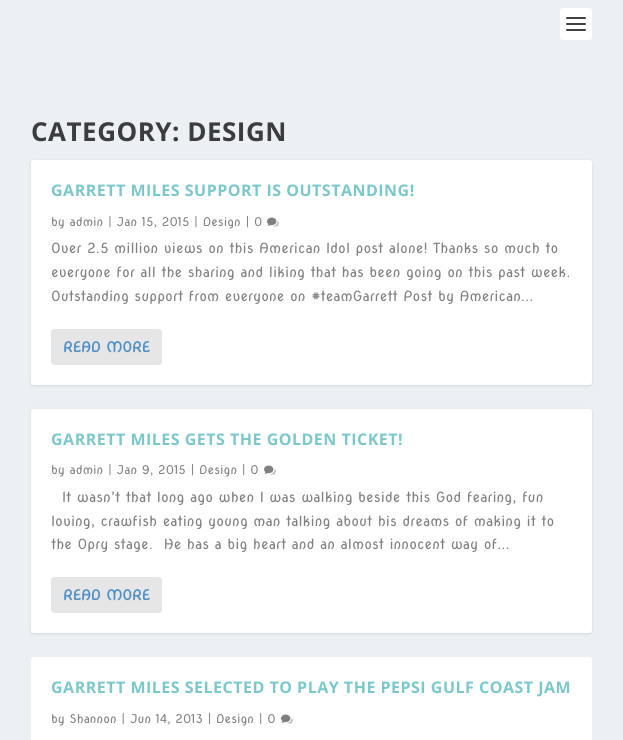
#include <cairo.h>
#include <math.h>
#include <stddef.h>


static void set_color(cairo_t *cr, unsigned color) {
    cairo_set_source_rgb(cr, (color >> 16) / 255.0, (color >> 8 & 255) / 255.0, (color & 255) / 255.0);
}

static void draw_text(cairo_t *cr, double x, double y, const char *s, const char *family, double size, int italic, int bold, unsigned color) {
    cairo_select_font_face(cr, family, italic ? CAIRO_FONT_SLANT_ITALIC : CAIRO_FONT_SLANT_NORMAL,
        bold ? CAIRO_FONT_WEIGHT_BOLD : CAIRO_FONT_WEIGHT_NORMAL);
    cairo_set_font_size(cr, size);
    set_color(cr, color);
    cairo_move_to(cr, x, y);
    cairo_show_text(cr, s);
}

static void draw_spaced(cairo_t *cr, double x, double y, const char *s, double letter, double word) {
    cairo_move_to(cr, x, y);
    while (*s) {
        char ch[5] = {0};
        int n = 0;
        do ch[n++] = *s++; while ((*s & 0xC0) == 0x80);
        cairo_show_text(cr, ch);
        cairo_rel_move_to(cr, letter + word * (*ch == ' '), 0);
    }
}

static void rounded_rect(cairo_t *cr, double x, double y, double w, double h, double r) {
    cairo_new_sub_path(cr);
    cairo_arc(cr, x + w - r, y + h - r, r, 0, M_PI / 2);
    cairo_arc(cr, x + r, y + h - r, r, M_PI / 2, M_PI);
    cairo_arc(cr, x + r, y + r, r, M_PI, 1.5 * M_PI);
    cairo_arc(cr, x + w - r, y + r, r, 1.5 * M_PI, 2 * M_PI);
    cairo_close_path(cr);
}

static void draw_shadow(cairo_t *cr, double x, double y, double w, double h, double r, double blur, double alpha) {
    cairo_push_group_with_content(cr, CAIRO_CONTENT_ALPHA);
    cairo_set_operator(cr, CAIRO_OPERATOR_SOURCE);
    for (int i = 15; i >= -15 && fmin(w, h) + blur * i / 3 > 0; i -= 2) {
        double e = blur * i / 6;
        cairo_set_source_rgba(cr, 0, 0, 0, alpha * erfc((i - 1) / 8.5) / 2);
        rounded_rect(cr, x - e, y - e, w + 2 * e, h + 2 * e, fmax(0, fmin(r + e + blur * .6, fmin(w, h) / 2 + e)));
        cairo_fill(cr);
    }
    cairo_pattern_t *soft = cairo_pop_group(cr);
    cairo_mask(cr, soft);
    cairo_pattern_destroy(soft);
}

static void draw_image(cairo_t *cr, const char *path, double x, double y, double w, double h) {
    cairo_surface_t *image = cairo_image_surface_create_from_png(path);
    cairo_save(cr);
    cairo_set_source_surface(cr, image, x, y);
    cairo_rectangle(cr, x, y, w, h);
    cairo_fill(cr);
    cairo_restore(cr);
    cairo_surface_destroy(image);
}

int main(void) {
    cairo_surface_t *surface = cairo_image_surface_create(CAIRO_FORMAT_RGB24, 623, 740);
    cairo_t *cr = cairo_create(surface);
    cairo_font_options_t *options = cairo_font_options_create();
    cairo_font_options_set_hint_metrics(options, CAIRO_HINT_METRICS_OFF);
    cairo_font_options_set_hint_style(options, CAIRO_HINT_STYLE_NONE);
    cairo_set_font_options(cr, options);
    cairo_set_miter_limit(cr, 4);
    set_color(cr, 0xECF0F5);
    cairo_paint(cr);
    set_color(cr, 0xFFFFFF);
    rounded_rect(cr, 560, 8, 32, 32, 3);
    cairo_fill(cr);
    set_color(cr, 0x404040);
    rounded_rect(cr, 566, 17, 20, 2, 1);
    cairo_fill(cr);
    rounded_rect(cr, 566, 23, 20, 2, 1);
    cairo_fill(cr);
    rounded_rect(cr, 566, 29, 20, 2, 1);
    cairo_fill(cr);
    cairo_select_font_face(cr, "Open Sans", CAIRO_FONT_SLANT_NORMAL, CAIRO_FONT_WEIGHT_BOLD);
    cairo_set_font_size(cr, 26);
    set_color(cr, 0x3B3C3D);
    draw_spaced(cr, 31, 141, "CATEGORY: DESIGN", 0.5, 0);
    set_color(cr, 0x000000);
    draw_shadow(cr, 31, 161, 561, 225, 3, 1.5, 0.1);
    set_color(cr, 0xFFFFFF);
    rounded_rect(cr, 31, 160, 561, 225, 3);
    cairo_fill(cr);
    cairo_set_font_size(cr, 16);
    set_color(cr, 0x7AC8CC);
    draw_spaced(cr, 51, 196, "GARRETT MILES SUPPORT IS OUTSTANDING!", 0.5, 0);
    draw_text(cr, 51, 226, "by admin | Jan 15, 2015 | Design | 0", "Nova Oval", 12, 0, 0, 0x808080);
    draw_image(cr, "assets/img1.png", 267, 217, 12, 10);
    draw_text(cr, 51, 253, "Over 2.5 million views on this American Idol post alone! Thanks so much to", "Nova Oval", 14, 0, 0, 0x808080);
    draw_text(cr, 51, 277, "everyone for all the sharing and liking that has been going on this past week.", "Nova Oval", 14, 0, 0, 0x808080);
    draw_text(cr, 51, 301, "Outstanding support from everyone on #teamGarrett Post by American...", "Nova Oval", 14, 0, 0, 0x808080);
    set_color(cr, 0xE6E6E6);
    rounded_rect(cr, 51, 329, 111, 36, 3);
    cairo_fill(cr);
    draw_text(cr, 63, 352, "READ MORE", "Nova Oval", 14, 0, 1, 0x5090C8);
    set_color(cr, 0x000000);
    draw_shadow(cr, 31, 410, 561, 224, 3, 1.5, 0.1);
    set_color(cr, 0xFFFFFF);
    rounded_rect(cr, 31, 409, 561, 224, 3);
    cairo_fill(cr);
    cairo_select_font_face(cr, "Open Sans", CAIRO_FONT_SLANT_NORMAL, CAIRO_FONT_WEIGHT_BOLD);
    cairo_set_font_size(cr, 16);
    set_color(cr, 0x7AC8CC);
    draw_spaced(cr, 51, 445, "GARRETT MILES GETS THE GOLDEN TICKET!", 0.5, 0);
    draw_text(cr, 51, 474, "by admin | Jan 9, 2015 | Design | 0", "Nova Oval", 12, 0, 0, 0x808080);
    draw_image(cr, "assets/img1.png", 264, 465, 12, 10);
    draw_text(cr, 62, 502, "It wasn’t that long ago when I was walking beside this God fearing, fun", "Nova Oval", 14, 0, 0, 0x808080);
    draw_text(cr, 51, 526, "loving, crawfish eating young man talking about his dreams of making it to", "Nova Oval", 14, 0, 0, 0x808080);
    draw_text(cr, 51, 549, "the Opry stage.  He has a big heart and an almost innocent way of...", "Nova Oval", 14, 0, 0, 0x808080);
    set_color(cr, 0xE6E6E6);
    rounded_rect(cr, 51, 577, 111, 36, 3);
    cairo_fill(cr);
    draw_text(cr, 63, 600, "READ MORE", "Nova Oval", 14, 0, 1, 0x5090C8);
    set_color(cr, 0xFFFFFF);
    rounded_rect(cr, 31, 657, 561, 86, 3);
    cairo_fill(cr);
    cairo_select_font_face(cr, "Open Sans", CAIRO_FONT_SLANT_NORMAL, CAIRO_FONT_WEIGHT_BOLD);
    cairo_set_font_size(cr, 16);
    set_color(cr, 0x7AC8CC);
    draw_spaced(cr, 51, 693, "GARRETT MILES SELECTED TO PLAY THE PEPSI GULF COAST JAM", 0.5, 0);
    draw_text(cr, 51, 723, "by Shannon | Jun 14, 2013 | Design | 0", "Nova Oval", 12, 0, 0, 0x808080);
    draw_image(cr, "assets/img1.png", 281, 714, 12, 10);
    cairo_surface_write_to_png(surface, "output.png");
    cairo_font_options_destroy(options);
    cairo_destroy(cr);
    cairo_surface_destroy(surface);
    return 0;
}
